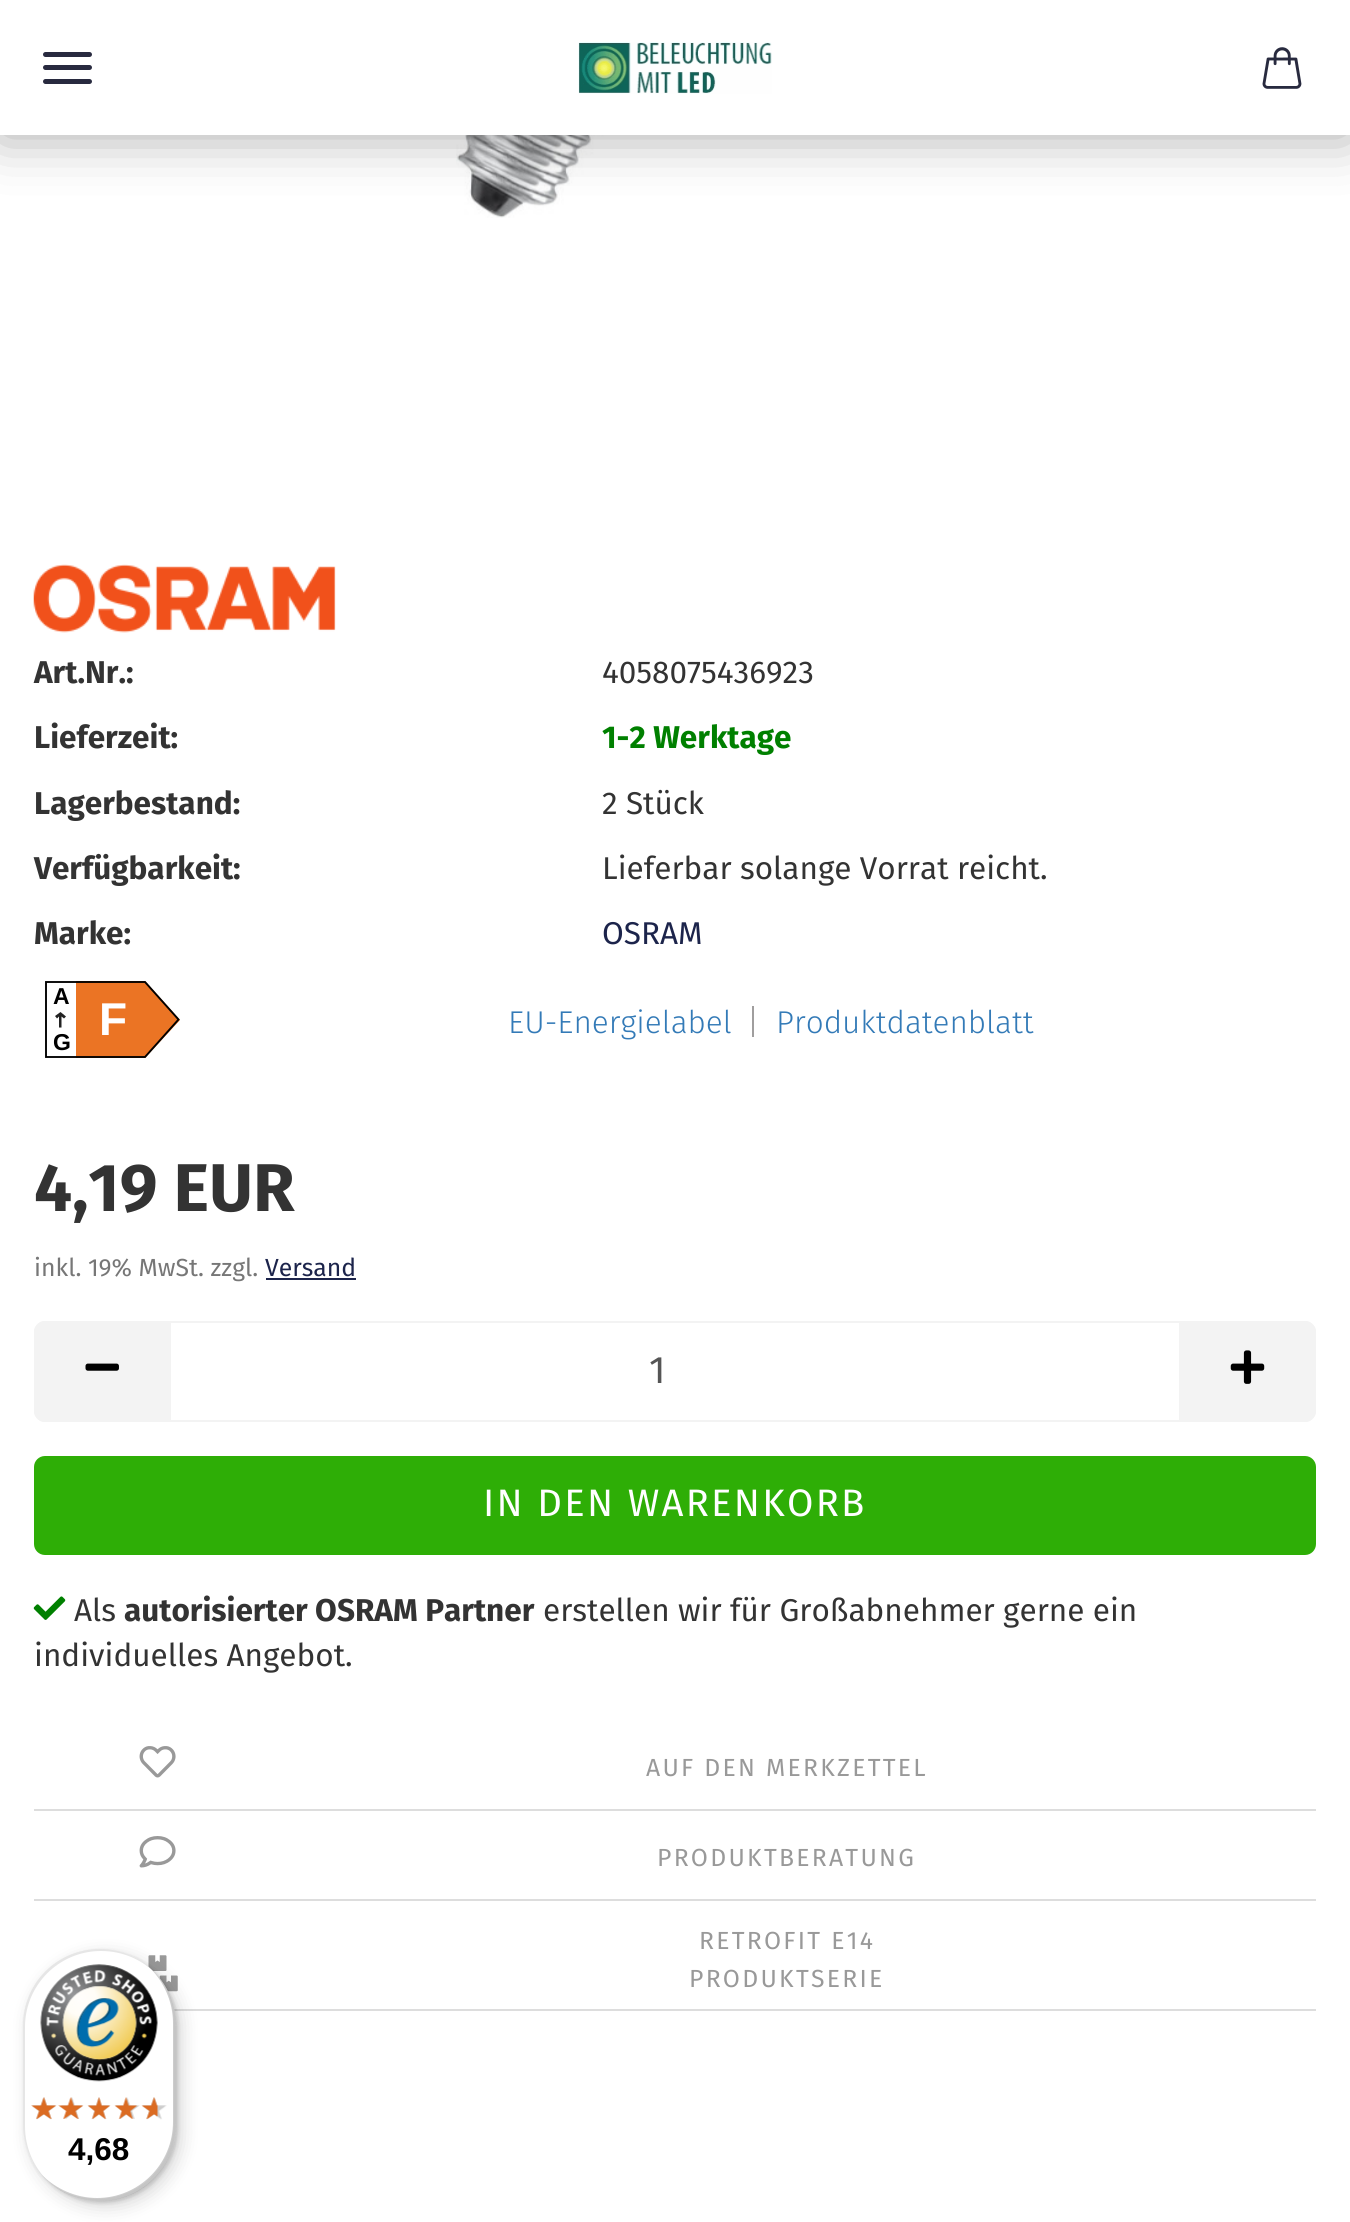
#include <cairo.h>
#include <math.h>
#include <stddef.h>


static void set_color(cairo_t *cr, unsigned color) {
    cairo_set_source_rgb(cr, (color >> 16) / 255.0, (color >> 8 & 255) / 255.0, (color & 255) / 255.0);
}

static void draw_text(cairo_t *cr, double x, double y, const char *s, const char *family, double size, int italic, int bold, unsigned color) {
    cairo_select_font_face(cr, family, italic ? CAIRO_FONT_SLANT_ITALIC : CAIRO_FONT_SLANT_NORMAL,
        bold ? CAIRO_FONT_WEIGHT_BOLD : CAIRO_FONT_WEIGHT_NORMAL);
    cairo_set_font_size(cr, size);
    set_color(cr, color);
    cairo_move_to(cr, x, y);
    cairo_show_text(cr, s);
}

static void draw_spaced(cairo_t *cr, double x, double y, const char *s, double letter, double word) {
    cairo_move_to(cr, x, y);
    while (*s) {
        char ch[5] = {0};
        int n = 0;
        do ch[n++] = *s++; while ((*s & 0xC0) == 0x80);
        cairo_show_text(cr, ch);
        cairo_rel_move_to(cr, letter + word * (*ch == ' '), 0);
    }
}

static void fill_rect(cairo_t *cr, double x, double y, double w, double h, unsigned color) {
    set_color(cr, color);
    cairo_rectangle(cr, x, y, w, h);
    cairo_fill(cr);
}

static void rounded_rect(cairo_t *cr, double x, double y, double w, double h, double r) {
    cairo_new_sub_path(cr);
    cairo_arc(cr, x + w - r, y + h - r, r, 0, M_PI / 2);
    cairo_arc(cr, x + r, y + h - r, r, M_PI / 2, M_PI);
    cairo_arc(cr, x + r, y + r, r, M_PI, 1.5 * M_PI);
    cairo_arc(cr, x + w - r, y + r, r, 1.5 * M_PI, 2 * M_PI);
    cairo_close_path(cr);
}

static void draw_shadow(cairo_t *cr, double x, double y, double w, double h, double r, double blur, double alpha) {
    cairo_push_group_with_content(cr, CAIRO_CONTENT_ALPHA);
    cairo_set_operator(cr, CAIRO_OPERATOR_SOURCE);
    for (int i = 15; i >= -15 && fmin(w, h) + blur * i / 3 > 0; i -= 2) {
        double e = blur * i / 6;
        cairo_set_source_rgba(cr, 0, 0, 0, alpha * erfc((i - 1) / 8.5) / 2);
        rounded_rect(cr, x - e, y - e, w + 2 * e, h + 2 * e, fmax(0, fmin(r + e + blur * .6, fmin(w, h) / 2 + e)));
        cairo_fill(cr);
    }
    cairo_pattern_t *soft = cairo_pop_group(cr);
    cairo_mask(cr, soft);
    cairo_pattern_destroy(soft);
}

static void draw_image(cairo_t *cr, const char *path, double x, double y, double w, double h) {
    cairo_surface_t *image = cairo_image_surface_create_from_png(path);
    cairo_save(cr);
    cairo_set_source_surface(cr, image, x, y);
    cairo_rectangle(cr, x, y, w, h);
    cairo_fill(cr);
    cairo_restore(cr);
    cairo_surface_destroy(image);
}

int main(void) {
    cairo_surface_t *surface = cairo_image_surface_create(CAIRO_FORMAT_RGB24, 1350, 2222);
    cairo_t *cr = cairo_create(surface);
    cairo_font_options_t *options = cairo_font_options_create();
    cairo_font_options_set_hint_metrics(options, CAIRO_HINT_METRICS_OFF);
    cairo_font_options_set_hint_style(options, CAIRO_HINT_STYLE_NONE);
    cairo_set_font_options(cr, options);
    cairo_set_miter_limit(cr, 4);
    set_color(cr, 0xFFFFFF);
    cairo_paint(cr);
    draw_image(cr, "assets/img3.png", 456, 135, 310, 83);
    set_color(cr, 0x000000);
    draw_shadow(cr, 0, 0, 1350, 135, 0, 28, 0.35);
    fill_rect(cr, 0, 0, 1350, 135, 0xFFFFFF);
    draw_image(cr, "assets/img1.png", 578, 42, 194, 52);
    draw_image(cr, "assets/img2.png", 1262, 47, 40, 42);
    set_color(cr, 0x282A3F);
    rounded_rect(cr, 43, 65, 49, 5, 2.5);
    cairo_fill(cr);
    rounded_rect(cr, 43, 52, 49, 5, 2.5);
    cairo_fill(cr);
    rounded_rect(cr, 43, 79, 49, 5, 2.5);
    cairo_fill(cr);
    draw_image(cr, "assets/img4.png", 33, 564, 303, 69);
    draw_text(cr, 34, 683, "Art.Nr.:", "Fira Sans", 31.5, 0, 1, 0x333333);
    draw_text(cr, 602, 683, "4058075436923", "Fira Sans", 31.5, 0, 0, 0x333333);
    draw_text(cr, 34, 748, "Lieferzeit:", "Fira Sans", 31.5, 0, 1, 0x333333);
    draw_text(cr, 602, 748, "1-2 Werktage", "Fira Sans", 31.5, 0, 1, 0x008000);
    draw_text(cr, 34, 814, "Lagerbestand:", "Fira Sans", 31.5, 0, 1, 0x333333);
    draw_text(cr, 602, 814, "2 Stück", "Fira Sans", 31.5, 0, 0, 0x333333);
    draw_text(cr, 34, 879, "Verfügbarkeit:", "Fira Sans", 31.5, 0, 1, 0x333333);
    draw_text(cr, 602, 879, "Lieferbar solange Vorrat reicht.", "Fira Sans", 31.5, 0, 0, 0x333333);
    draw_text(cr, 34, 944, "Marke:", "Fira Sans", 31.5, 0, 1, 0x333333);
    draw_text(cr, 602, 944, "OSRAM", "Fira Sans", 31.5, 0, 0, 0x1C244B);
    set_color(cr, 0xEB7424);
    cairo_new_path(cr);
    cairo_move_to(cr, 145, 1058);
    cairo_line_to(cr, 45, 1058);
    cairo_line_to(cr, 45, 981);
    cairo_line_to(cr, 145, 981);
    cairo_line_to(cr, 180, 1020);
    cairo_close_path(cr);
    cairo_fill(cr);
    fill_rect(cr, 45, 981, 31, 77, 0xFFFFFF);
    draw_text(cr, 53, 1004, "A", "Liberation Sans", 23, 0, 1, 0x000000);
    draw_text(cr, 99, 1035, "F", "Liberation Sans", 46, 0, 1, 0xFFFFFF);
    set_color(cr, 0x222222);
    cairo_new_path(cr);
    cairo_move_to(cr, 60.5, 1012);
    cairo_line_to(cr, 66, 1016.5);
    cairo_line_to(cr, 64, 1018.5);
    cairo_line_to(cr, 61.5, 1016.5);
    cairo_line_to(cr, 61.5, 1027.5);
    cairo_line_to(cr, 59, 1027.5);
    cairo_line_to(cr, 59, 1016.5);
    cairo_line_to(cr, 57, 1018.5);
    cairo_line_to(cr, 55, 1016);
    cairo_close_path(cr);
    cairo_fill(cr);
    cairo_new_path(cr);
    cairo_move_to(cr, 46, 982);
    cairo_line_to(cr, 145, 982);
    cairo_line_to(cr, 178.5, 1019.5);
    cairo_line_to(cr, 145, 1057);
    cairo_line_to(cr, 46, 1057);
    cairo_close_path(cr);
    set_color(cr, 0x000000);
    cairo_set_line_width(cr, 1.9);
    cairo_stroke(cr);
    draw_text(cr, 53, 1050, "G", "Liberation Sans", 23, 0, 1, 0x000000);
    draw_text(cr, 508, 1033, "EU-Energielabel", "Fira Sans Light", 31.5, 0, 0, 0x337AB7);
    fill_rect(cr, 752, 1006, 2, 31, 0xA09E9E);
    draw_text(cr, 776, 1033, "Produktdatenblatt", "Fira Sans Light", 31.5, 0, 0, 0x337AB7);
    draw_text(cr, 34, 1211, "4,19 EUR", "Fira Sans", 67.5, 0, 1, 0x333333);
    draw_text(cr, 34, 1276, "inkl. 19% MwSt. zzgl.", "Fira Sans", 24.75, 0, 0, 0x777777);
    draw_text(cr, 265, 1276, "Versand", "Fira Sans", 24.75, 0, 0, 0x1C244B);
    fill_rect(cr, 266, 1278, 90, 2, 0x1C244B);
    set_color(cr, 0xF3F3F3);
    cairo_new_path(cr);
    cairo_move_to(cr, 45, 1321);
    cairo_line_to(cr, 169, 1321);
    cairo_line_to(cr, 169, 1422);
    cairo_line_to(cr, 45, 1422);
    cairo_curve_to(cr, 39, 1422, 34, 1417, 34, 1411);
    cairo_line_to(cr, 34, 1332);
    cairo_curve_to(cr, 34, 1326, 39, 1321, 45, 1321);
    cairo_close_path(cr);
    cairo_fill(cr);
    cairo_set_fill_rule(cr, CAIRO_FILL_RULE_EVEN_ODD);
    cairo_new_path(cr);
    cairo_move_to(cr, 45, 1321);
    cairo_line_to(cr, 169, 1321);
    cairo_line_to(cr, 169, 1422);
    cairo_line_to(cr, 45, 1422);
    cairo_curve_to(cr, 39, 1422, 34, 1417, 34, 1411);
    cairo_line_to(cr, 34, 1332);
    cairo_curve_to(cr, 34, 1326, 39, 1321, 45, 1321);
    cairo_close_path(cr);
    cairo_move_to(cr, 45, 1323);
    cairo_line_to(cr, 169, 1323);
    cairo_line_to(cr, 169, 1420);
    cairo_line_to(cr, 45, 1420);
    cairo_curve_to(cr, 40, 1420, 36, 1416, 36, 1411);
    cairo_line_to(cr, 36, 1332);
    cairo_curve_to(cr, 36, 1327, 40, 1323, 45, 1323);
    cairo_close_path(cr);
    cairo_fill(cr);
    draw_image(cr, "assets/img5.png", 85, 1363, 34, 8);
    cairo_rectangle(cr, 170, 1322, 1010, 99);
    cairo_set_line_width(cr, 2);
    cairo_stroke(cr);
    draw_text(cr, 649, 1383, "1", "Fira Sans", 38.25, 0, 0, 0x555555);
    set_color(cr, 0xF3F3F3);
    cairo_new_path(cr);
    cairo_move_to(cr, 1181, 1321);
    cairo_line_to(cr, 1305, 1321);
    cairo_curve_to(cr, 1311, 1321, 1316, 1326, 1316, 1332);
    cairo_line_to(cr, 1316, 1411);
    cairo_curve_to(cr, 1316, 1417, 1311, 1422, 1305, 1422);
    cairo_line_to(cr, 1181, 1422);
    cairo_close_path(cr);
    cairo_fill(cr);
    cairo_new_path(cr);
    cairo_move_to(cr, 1181, 1321);
    cairo_line_to(cr, 1305, 1321);
    cairo_curve_to(cr, 1311, 1321, 1316, 1326, 1316, 1332);
    cairo_line_to(cr, 1316, 1411);
    cairo_curve_to(cr, 1316, 1417, 1311, 1422, 1305, 1422);
    cairo_line_to(cr, 1181, 1422);
    cairo_close_path(cr);
    cairo_move_to(cr, 1181, 1323);
    cairo_line_to(cr, 1305, 1323);
    cairo_curve_to(cr, 1310, 1323, 1314, 1327, 1314, 1332);
    cairo_line_to(cr, 1314, 1411);
    cairo_curve_to(cr, 1314, 1416, 1310, 1420, 1305, 1420);
    cairo_line_to(cr, 1181, 1420);
    cairo_close_path(cr);
    cairo_fill(cr);
    draw_image(cr, "assets/img6.png", 1230, 1350, 35, 34);
    set_color(cr, 0x2EAE06);
    rounded_rect(cr, 35, 1457, 1280, 97, 10);
    cairo_fill_preserve(cr);
    cairo_stroke(cr);
    set_color(cr, 0xFFFFFF);
    draw_spaced(cr, 483, 1516, "IN DEN WARENKORB", 2.25, 0);
    draw_image(cr, "assets/img7.png", 33, 1596, 33, 24);
    draw_text(cr, 74, 1621, "Als", "Fira Sans", 31.5, 0, 0, 0x333333);
    draw_text(cr, 124, 1621, "autorisierter OSRAM Partner", "Fira Sans", 31.5, 0, 1, 0x333333);
    draw_text(cr, 543, 1621, "erstellen wir für Großabnehmer gerne ein", "Fira Sans", 31.5, 0, 0, 0x333333);
    draw_text(cr, 34, 1666, "individuelles Angebot.", "Fira Sans", 31.5, 0, 0, 0x333333);
    fill_rect(cr, 34, 1809, 1282, 2, 0xDDDDDD);
    draw_image(cr, "assets/img8.png", 139, 1746, 37, 32);
    cairo_set_font_size(cr, 24.75);
    set_color(cr, 0x999999);
    draw_spaced(cr, 646, 1776, "AUF DEN MERKZETTEL", 2.25, 0);
    fill_rect(cr, 34, 1899, 1282, 2, 0xDDDDDD);
    draw_image(cr, "assets/img9.png", 139, 1836, 37, 32);
    set_color(cr, 0x999999);
    draw_spaced(cr, 657, 1866, "PRODUKTBERATUNG", 2.25, 0);
    fill_rect(cr, 174, 2009, 1142, 2, 0xDDDDDD);
    draw_image(cr, "assets/img10.png", 148, 1955, 30, 37);
    set_color(cr, 0x999999);
    draw_spaced(cr, 699, 1949, "RETROFIT E14", 2.25, 0);
    draw_spaced(cr, 689, 1987, "PRODUKTSERIE", 2.25, 0);
    set_color(cr, 0x000000);
    draw_shadow(cr, 29, 1955, 153, 252, 76.5, 9, 0.15);
    draw_shadow(cr, 25, 1951, 153, 252, 76.5, 2, 0.15);
    set_color(cr, 0xFFFFFF);
    rounded_rect(cr, 23, 1949, 153, 252, 76.5);
    cairo_fill(cr);
    cairo_set_source_rgba(cr, 0, 0, 0, 0.1);
    cairo_set_fill_rule(cr, CAIRO_FILL_RULE_WINDING);
    cairo_new_path(cr);
    cairo_move_to(cr, 101, 1951);
    cairo_curve_to(cr, 123, 1951, 143, 1960, 157, 1975);
    cairo_curve_to(cr, 143, 1959, 122, 1949, 100, 1949);
    cairo_curve_to(cr, 57, 1949, 23, 1983, 23, 2026);
    cairo_line_to(cr, 23, 2124);
    cairo_curve_to(cr, 23, 2147, 33, 2168, 49, 2182);
    cairo_curve_to(cr, 34, 2168, 25, 2148, 25, 2126);
    cairo_line_to(cr, 25, 2027);
    cairo_curve_to(cr, 25, 1985, 59, 1951, 101, 1951);
    cairo_close_path(cr);
    cairo_fill(cr);
    cairo_set_source_rgba(cr, 0, 0, 0, 0.2);
    cairo_new_path(cr);
    cairo_move_to(cr, 42, 2175);
    cairo_curve_to(cr, 56, 2191, 77, 2201, 100, 2201);
    cairo_curve_to(cr, 142, 2201, 176, 2167, 176, 2124);
    cairo_line_to(cr, 176, 2026);
    cairo_curve_to(cr, 176, 2003, 166, 1982, 150, 1968);
    cairo_curve_to(cr, 164, 1982, 173, 2002, 173, 2023);
    cairo_line_to(cr, 173, 2122);
    cairo_curve_to(cr, 173, 2164, 139, 2198, 97, 2198);
    cairo_curve_to(cr, 76, 2198, 56, 2189, 42, 2175);
    cairo_close_path(cr);
    cairo_fill(cr);
    cairo_set_source_rgba(cr, 0.196, 0.196, 0.196, 0.2);
    cairo_new_path(cr);
    cairo_move_to(cr, 47, 2180);
    cairo_curve_to(cr, 60, 2193, 79, 2201, 100, 2201);
    cairo_curve_to(cr, 142, 2201, 176, 2167, 176, 2124);
    cairo_line_to(cr, 176, 2026);
    cairo_curve_to(cr, 176, 2005, 168, 1986, 155, 1973);
    cairo_curve_to(cr, 167, 1986, 174, 2004, 174, 2024);
    cairo_line_to(cr, 174, 2123);
    cairo_curve_to(cr, 174, 2165, 140, 2199, 98, 2199);
    cairo_curve_to(cr, 78, 2199, 60, 2192, 47, 2180);
    cairo_close_path(cr);
    cairo_fill(cr);
    cairo_set_source_rgba(cr, 1, 1, 1, 0.3);
    cairo_new_path(cr);
    cairo_move_to(cr, 42, 2175);
    cairo_curve_to(cr, 56, 2191, 77, 2201, 100, 2201);
    cairo_curve_to(cr, 142, 2201, 176, 2167, 176, 2124);
    cairo_line_to(cr, 176, 2026);
    cairo_curve_to(cr, 176, 2003, 166, 1982, 150, 1968);
    cairo_curve_to(cr, 165, 1982, 174, 2002, 174, 2024);
    cairo_line_to(cr, 174, 2123);
    cairo_curve_to(cr, 174, 2165, 140, 2199, 98, 2199);
    cairo_curve_to(cr, 76, 2199, 56, 2190, 42, 2175);
    cairo_close_path(cr);
    cairo_fill(cr);
    draw_image(cr, "assets/img11.png", 40, 1964, 118, 118);
    draw_image(cr, "assets/img12.png", 31, 2097, 25, 23);
    draw_image(cr, "assets/img13.png", 61, 2097, 22, 22);
    draw_image(cr, "assets/img14.png", 88, 2097, 22, 23);
    draw_image(cr, "assets/img15.png", 115, 2097, 25, 22);
    draw_image(cr, "assets/img16.png", 142, 2097, 25, 23);
    draw_image(cr, "assets/img17.png", 31, 2097, 26, 22);
    draw_image(cr, "assets/img18.png", 58, 2097, 26, 22);
    draw_image(cr, "assets/img19.png", 87, 2097, 24, 22);
    draw_image(cr, "assets/img20.png", 114, 2097, 24, 22);
    draw_image(cr, "assets/img21.png", 141, 2097, 17, 22);
    draw_text(cr, 68, 2160, "4,68", "Liberation Sans", 31.5, 0, 1, 0x000000);
    cairo_surface_write_to_png(surface, "output.png");
    cairo_font_options_destroy(options);
    cairo_destroy(cr);
    cairo_surface_destroy(surface);
    return 0;
}
